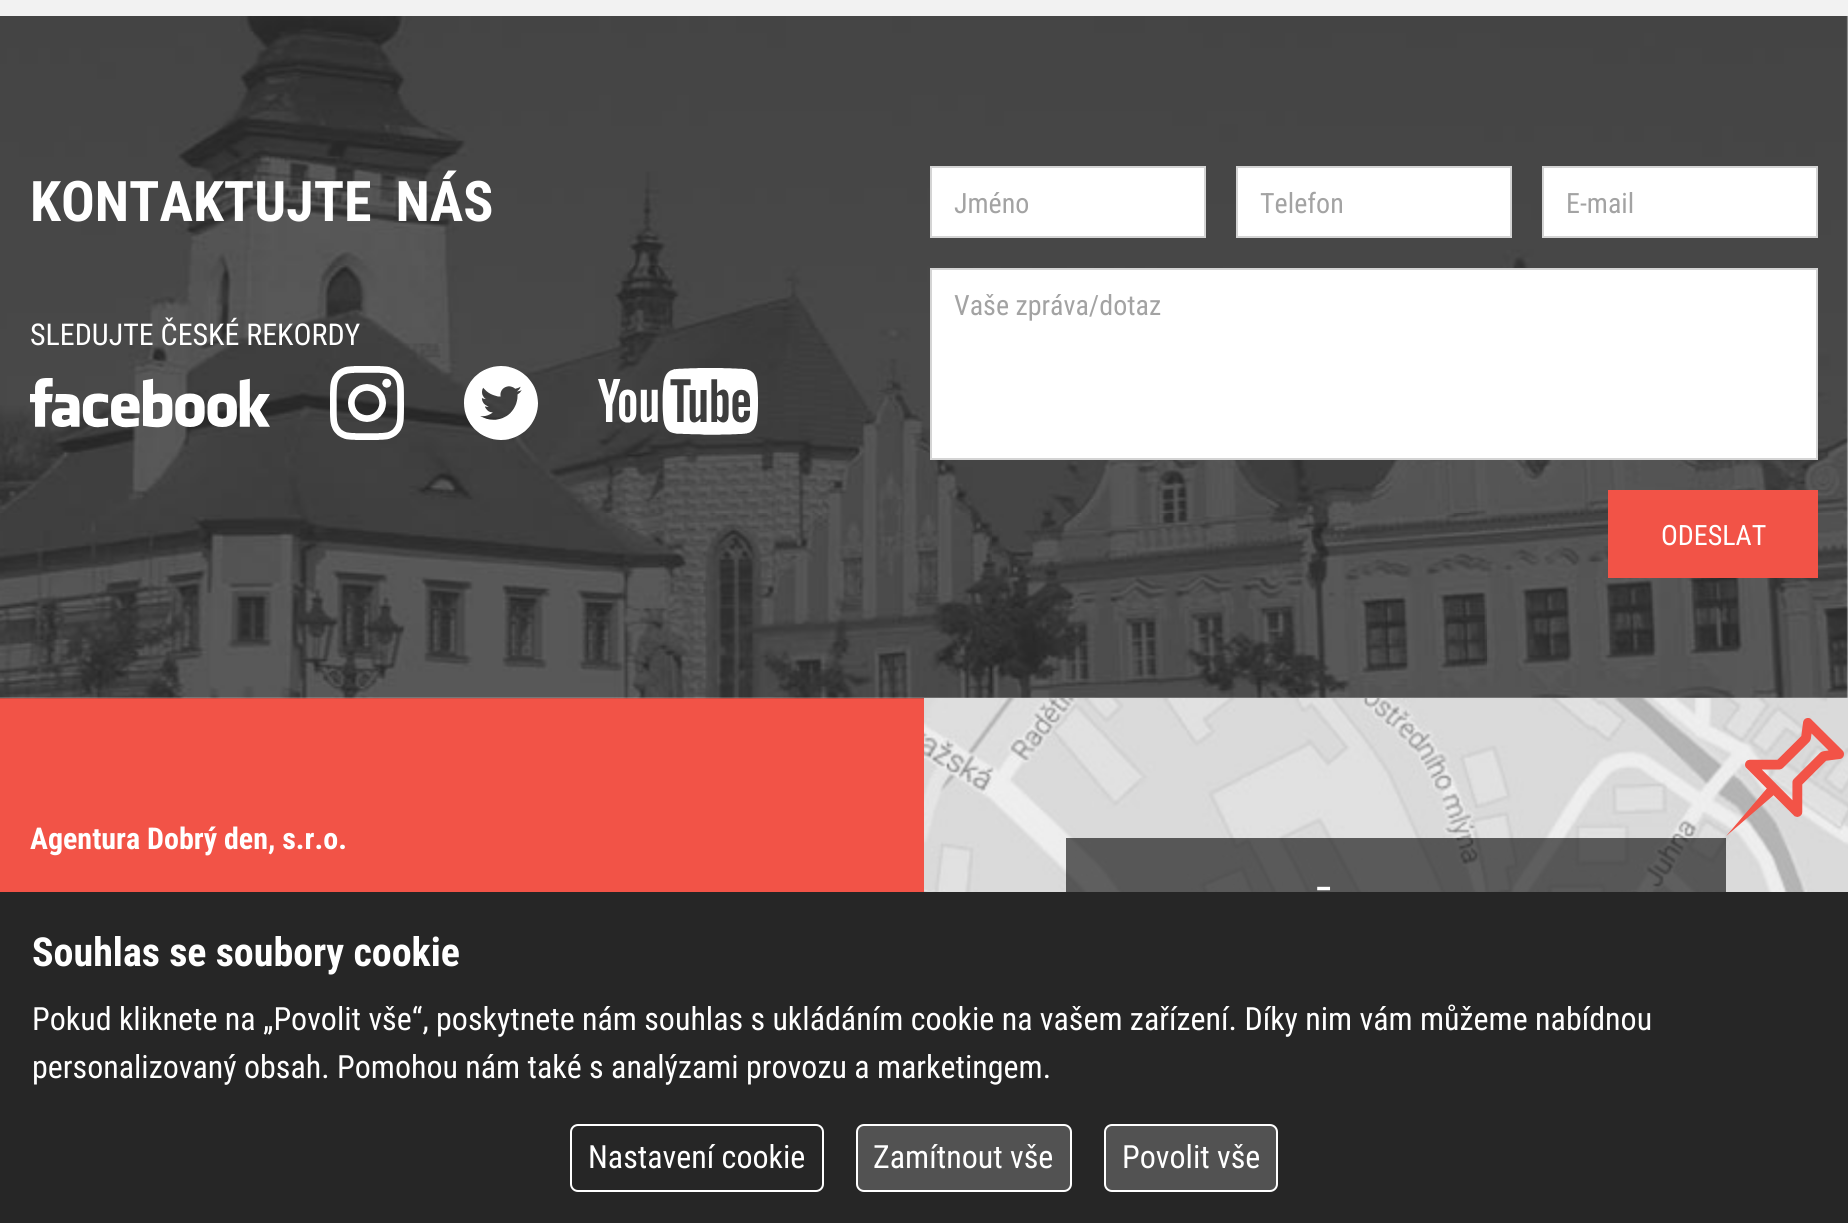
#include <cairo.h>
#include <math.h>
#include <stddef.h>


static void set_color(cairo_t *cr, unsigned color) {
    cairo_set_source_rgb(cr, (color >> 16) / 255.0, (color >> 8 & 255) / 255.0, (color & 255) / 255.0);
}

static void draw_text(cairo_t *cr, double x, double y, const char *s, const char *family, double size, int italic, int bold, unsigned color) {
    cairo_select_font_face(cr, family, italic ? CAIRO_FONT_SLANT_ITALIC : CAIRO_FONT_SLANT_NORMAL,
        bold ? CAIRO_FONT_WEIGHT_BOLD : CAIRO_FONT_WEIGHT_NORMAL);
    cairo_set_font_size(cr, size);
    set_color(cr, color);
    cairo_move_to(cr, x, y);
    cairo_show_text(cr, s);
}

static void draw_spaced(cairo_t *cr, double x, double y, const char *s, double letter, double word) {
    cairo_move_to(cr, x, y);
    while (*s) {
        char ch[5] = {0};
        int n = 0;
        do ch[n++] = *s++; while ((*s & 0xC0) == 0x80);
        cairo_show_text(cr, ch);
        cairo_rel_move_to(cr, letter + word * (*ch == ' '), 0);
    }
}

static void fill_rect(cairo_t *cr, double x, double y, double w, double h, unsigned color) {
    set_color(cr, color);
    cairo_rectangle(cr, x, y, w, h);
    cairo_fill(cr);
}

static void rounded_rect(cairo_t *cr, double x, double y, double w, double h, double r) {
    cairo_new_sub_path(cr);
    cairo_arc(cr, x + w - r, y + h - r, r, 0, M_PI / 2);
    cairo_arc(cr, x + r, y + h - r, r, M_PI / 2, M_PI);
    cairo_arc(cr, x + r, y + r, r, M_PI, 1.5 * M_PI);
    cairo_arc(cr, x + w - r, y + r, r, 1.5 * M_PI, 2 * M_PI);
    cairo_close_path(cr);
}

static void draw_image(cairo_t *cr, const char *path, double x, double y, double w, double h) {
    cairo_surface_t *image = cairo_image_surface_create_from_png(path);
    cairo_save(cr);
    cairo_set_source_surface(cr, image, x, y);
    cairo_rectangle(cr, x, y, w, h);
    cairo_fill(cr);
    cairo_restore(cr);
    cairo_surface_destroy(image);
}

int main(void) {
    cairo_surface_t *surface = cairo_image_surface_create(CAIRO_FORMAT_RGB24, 1848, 1223);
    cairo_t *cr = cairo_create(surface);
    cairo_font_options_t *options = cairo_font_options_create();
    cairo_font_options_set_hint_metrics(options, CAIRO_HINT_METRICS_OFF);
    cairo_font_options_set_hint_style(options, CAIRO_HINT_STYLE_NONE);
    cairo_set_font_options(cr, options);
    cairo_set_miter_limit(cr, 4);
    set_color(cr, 0xFFFFFF);
    cairo_paint(cr);
    fill_rect(cr, 0, 0, 1848, 16, 0xF2F2F2);
    fill_rect(cr, 0, 698, 924, 194, 0xF25347);
    draw_image(cr, "assets/img1.png", 0, 16, 1848, 683);
    cairo_select_font_face(cr, "Roboto Condensed", CAIRO_FONT_SLANT_NORMAL, CAIRO_FONT_WEIGHT_BOLD);
    cairo_set_font_size(cr, 56);
    set_color(cr, 0xFFFFFF);
    draw_spaced(cr, 30, 221, "KONTAKTUJTE NÁS", 0, 11);
    draw_text(cr, 30, 345, "SLEDUJTE ČESKÉ REKORDY", "Roboto Condensed", 30, 0, 0, 0xFFFFFF);
    draw_image(cr, "assets/img2.png", 30, 378, 240, 50);
    draw_image(cr, "assets/img3.png", 330, 366, 74, 74);
    draw_image(cr, "assets/img4.png", 464, 366, 74, 74);
    draw_image(cr, "assets/img5.png", 598, 368, 160, 67);
    cairo_rectangle(cr, 931, 167, 274, 70);
    cairo_fill_preserve(cr);
    set_color(cr, 0xD4D4D4);
    cairo_stroke(cr);
    draw_text(cr, 954, 213, "Jméno", "Roboto Condensed", 28, 0, 0, 0xA3A3A3);
    set_color(cr, 0xFFFFFF);
    cairo_rectangle(cr, 1237, 167, 274, 70);
    cairo_fill_preserve(cr);
    set_color(cr, 0xD4D4D4);
    cairo_stroke(cr);
    draw_text(cr, 1260, 213, "Telefon", "Roboto Condensed", 28, 0, 0, 0xA3A3A3);
    set_color(cr, 0xFFFFFF);
    cairo_rectangle(cr, 1543, 167, 274, 70);
    cairo_fill_preserve(cr);
    set_color(cr, 0xD4D4D4);
    cairo_stroke(cr);
    draw_text(cr, 1566, 213, "E-mail", "Roboto Condensed", 28, 0, 0, 0xA3A3A3);
    set_color(cr, 0xFFFFFF);
    cairo_rectangle(cr, 931, 269, 886, 190);
    cairo_fill_preserve(cr);
    set_color(cr, 0xD4D4D4);
    cairo_stroke(cr);
    draw_text(cr, 954, 315, "Vaše zpráva/dotaz", "Roboto Condensed", 28, 0, 0, 0xA3A3A3);
    fill_rect(cr, 1608, 490, 210, 88, 0xF25347);
    draw_text(cr, 1661, 545, "ODESLAT", "Roboto Condensed", 28, 0, 0, 0xFFFFFF);
    draw_text(cr, 30, 849, "Agentura Dobrý den, s.r.o.", "Roboto Condensed", 30, 0, 1, 0xFFFFFF);
    draw_image(cr, "assets/img6.png", 924, 698, 924, 194);
    cairo_set_source_rgba(cr, 0, 0, 0, 0.6);
    cairo_rectangle(cr, 1066, 838, 660, 54);
    cairo_fill(cr);
    draw_image(cr, "assets/img7.png", 1726, 718, 118, 118);
    draw_text(cr, 1315, 899, "–", "Roboto Condensed", 30, 0, 1, 0xFFFFFF);
    fill_rect(cr, 0, 892, 1848, 331, 0x262626);
    draw_text(cr, 32, 966, "Souhlas se soubory cookie", "Roboto Condensed", 40, 0, 1, 0xFFFFFF);
    draw_text(cr, 32, 1030, "Pokud kliknete na „Povolit vše“, poskytnete nám souhlas s ukládáním cookie na vašem zařízení. Díky nim vám můžeme nabídnou", "Roboto Condensed", 32, 0, 0, 0xFFFFFF);
    draw_text(cr, 32, 1078, "personalizovaný obsah. Pomohou nám také s analýzami provozu a marketingem.", "Roboto Condensed", 32, 0, 0, 0xFFFFFF);
    rounded_rect(cr, 571, 1125, 252, 66, 7);
    cairo_stroke(cr);
    draw_text(cr, 588, 1168, "Nastavení cookie", "Roboto Condensed", 32, 0, 0, 0xFFFFFF);
    set_color(cr, 0x525252);
    rounded_rect(cr, 857, 1125, 214, 66, 7);
    cairo_fill_preserve(cr);
    set_color(cr, 0xFFFFFF);
    cairo_stroke(cr);
    draw_text(cr, 873, 1168, "Zamítnout vše", "Roboto Condensed", 32, 0, 0, 0xFFFFFF);
    set_color(cr, 0x525252);
    rounded_rect(cr, 1105, 1125, 172, 66, 7);
    cairo_fill_preserve(cr);
    set_color(cr, 0xFFFFFF);
    cairo_stroke(cr);
    draw_text(cr, 1122, 1168, "Povolit vše", "Roboto Condensed", 32, 0, 0, 0xFFFFFF);
    cairo_surface_write_to_png(surface, "output.png");
    cairo_font_options_destroy(options);
    cairo_destroy(cr);
    cairo_surface_destroy(surface);
    return 0;
}
